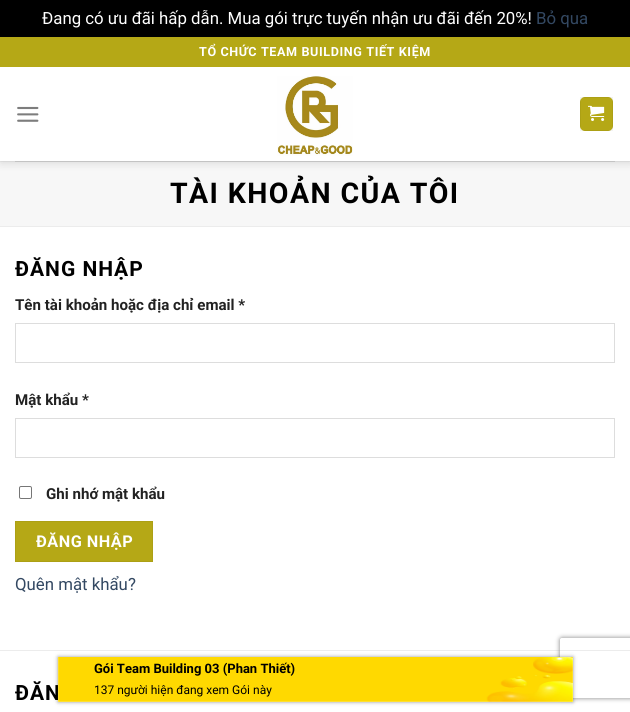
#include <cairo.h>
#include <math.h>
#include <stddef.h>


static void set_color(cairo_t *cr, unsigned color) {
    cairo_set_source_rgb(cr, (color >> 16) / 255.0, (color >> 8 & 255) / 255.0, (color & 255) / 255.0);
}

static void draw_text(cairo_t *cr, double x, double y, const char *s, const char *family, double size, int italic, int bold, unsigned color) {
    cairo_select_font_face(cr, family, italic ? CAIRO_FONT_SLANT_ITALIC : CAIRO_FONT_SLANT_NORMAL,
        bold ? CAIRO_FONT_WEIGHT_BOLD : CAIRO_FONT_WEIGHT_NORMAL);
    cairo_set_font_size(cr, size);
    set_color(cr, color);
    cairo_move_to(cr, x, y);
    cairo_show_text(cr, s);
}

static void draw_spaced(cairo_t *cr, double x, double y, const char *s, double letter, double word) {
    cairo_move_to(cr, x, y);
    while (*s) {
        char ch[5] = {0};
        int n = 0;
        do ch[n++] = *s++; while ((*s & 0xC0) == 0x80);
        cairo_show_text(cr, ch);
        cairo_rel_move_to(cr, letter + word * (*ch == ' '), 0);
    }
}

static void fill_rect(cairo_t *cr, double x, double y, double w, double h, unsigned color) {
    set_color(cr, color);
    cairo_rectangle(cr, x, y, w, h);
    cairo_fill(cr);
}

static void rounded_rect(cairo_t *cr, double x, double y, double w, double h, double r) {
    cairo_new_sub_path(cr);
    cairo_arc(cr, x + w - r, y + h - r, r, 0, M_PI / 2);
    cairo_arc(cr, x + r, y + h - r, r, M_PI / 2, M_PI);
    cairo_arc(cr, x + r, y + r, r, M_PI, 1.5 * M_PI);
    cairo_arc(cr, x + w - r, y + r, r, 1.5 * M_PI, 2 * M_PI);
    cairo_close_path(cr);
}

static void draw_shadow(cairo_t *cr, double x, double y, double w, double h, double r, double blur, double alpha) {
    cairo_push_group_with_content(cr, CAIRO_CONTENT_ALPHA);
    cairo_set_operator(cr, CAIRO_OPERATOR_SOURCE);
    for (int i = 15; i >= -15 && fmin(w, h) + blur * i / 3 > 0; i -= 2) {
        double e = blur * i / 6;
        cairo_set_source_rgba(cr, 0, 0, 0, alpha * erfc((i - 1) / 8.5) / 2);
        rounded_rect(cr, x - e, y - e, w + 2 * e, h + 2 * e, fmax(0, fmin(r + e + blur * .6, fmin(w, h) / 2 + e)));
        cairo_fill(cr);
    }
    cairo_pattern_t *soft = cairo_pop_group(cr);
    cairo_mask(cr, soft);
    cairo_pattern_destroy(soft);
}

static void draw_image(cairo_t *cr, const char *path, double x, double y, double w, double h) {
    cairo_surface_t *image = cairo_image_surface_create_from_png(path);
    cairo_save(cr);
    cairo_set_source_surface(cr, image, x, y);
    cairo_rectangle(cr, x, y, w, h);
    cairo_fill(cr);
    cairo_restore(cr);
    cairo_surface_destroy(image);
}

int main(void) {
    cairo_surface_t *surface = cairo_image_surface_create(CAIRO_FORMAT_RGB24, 630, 712);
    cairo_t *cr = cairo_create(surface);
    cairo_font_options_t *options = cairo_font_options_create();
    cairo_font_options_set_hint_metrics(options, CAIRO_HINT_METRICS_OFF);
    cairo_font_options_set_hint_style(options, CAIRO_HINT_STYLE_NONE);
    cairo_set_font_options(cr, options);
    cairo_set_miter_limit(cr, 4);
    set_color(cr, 0x000000);
    cairo_paint(cr);
    draw_text(cr, 42, 24, "Đang có ưu đãi hấp dẫn. Mua gói trực tuyến nhận ưu đãi đến 20%!", "Roboto", 16.8, 0, 0, 0xFFFFFF);
    draw_text(cr, 536, 24, "Bỏ qua", "Roboto", 16.8, 0, 0, 0x334862);
    fill_rect(cr, 0, 67, 630, 645, 0xFFFFFF);
    fill_rect(cr, 0, 162, 630, 64, 0xF7F7F7);
    fill_rect(cr, 0, 161, 630, 1, 0xECECEC);
    cairo_save(cr);
    cairo_set_fill_rule(cr, CAIRO_FILL_RULE_EVEN_ODD);
    cairo_new_path(cr);
    cairo_move_to(cr, 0, 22);
    cairo_line_to(cr, 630, 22);
    cairo_line_to(cr, 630, 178);
    cairo_line_to(cr, 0, 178);
    cairo_close_path(cr);
    cairo_move_to(cr, 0, 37);
    cairo_line_to(cr, 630, 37);
    cairo_line_to(cr, 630, 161);
    cairo_line_to(cr, 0, 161);
    cairo_close_path(cr);
    cairo_clip(cr);
    set_color(cr, 0x000000);
    draw_shadow(cr, 1, 38, 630, 124, 0, 5, 0.15);
    cairo_restore(cr);
    fill_rect(cr, 0, 37, 630, 30, 0xB5A816);
    cairo_select_font_face(cr, "Roboto", CAIRO_FONT_SLANT_NORMAL, CAIRO_FONT_WEIGHT_BOLD);
    cairo_set_font_size(cr, 12.6);
    set_color(cr, 0xFFFFFF);
    draw_spaced(cr, 199, 56, "TỔ CHỨC TEAM BUILDING TIẾT KIỆM", 0.6, 0);
    draw_image(cr, "assets/img1.png", 17, 106, 22, 16);
    draw_image(cr, "assets/img2.png", 277, 76, 76, 80);
    set_color(cr, 0xB5A816);
    rounded_rect(cr, 580, 97, 33, 34, 5);
    cairo_fill(cr);
    cairo_rectangle(cr, 580.5, 97.5, 32, 33);
    cairo_set_source_rgba(cr, 0, 0, 0, 0.05);
    cairo_set_line_width(cr, 1);
    cairo_stroke(cr);
    draw_image(cr, "assets/img3.png", 588, 105, 17, 16);
    fill_rect(cr, 15, 161, 600, 1, 0xC3C3C3);
    fill_rect(cr, 0, 226, 630, 1, 0xECECEC);
    cairo_set_font_size(cr, 28.5);
    set_color(cr, 0x000000);
    draw_spaced(cr, 170, 203, "TÀI KHOẢN CỦA TÔI", 1.4, 0);
    fill_rect(cr, 0, 650, 630, 1, 0xECECEC);
    cairo_set_font_size(cr, 21);
    set_color(cr, 0x000000);
    draw_spaced(cr, 15, 276, "ĐĂNG NHẬP", 1, 0);
    draw_text(cr, 15, 310, "Tên tài khoản hoặc địa chỉ email *", "Roboto", 15.1, 0, 1, 0x222222);
    cairo_rectangle(cr, 15.5, 323.5, 599, 39);
    set_color(cr, 0xDDDDDD);
    cairo_stroke(cr);
    draw_text(cr, 15, 405, "Mật khẩu *", "Roboto", 15.1, 0, 1, 0x222222);
    cairo_rectangle(cr, 15.5, 418.5, 599, 39);
    set_color(cr, 0xDDDDDD);
    cairo_stroke(cr);
    rounded_rect(cr, 19.5, 486.5, 12, 12, 1.5);
    set_color(cr, 0x767676);
    cairo_stroke(cr);
    draw_text(cr, 46, 499, "Ghi nhớ mật khẩu", "Roboto", 15.1, 0, 1, 0x222222);
    set_color(cr, 0xB5A816);
    cairo_rectangle(cr, 15.5, 521.5, 137, 40);
    cairo_fill_preserve(cr);
    set_color(cr, 0xACA015);
    cairo_stroke(cr);
    cairo_set_font_size(cr, 16.25);
    set_color(cr, 0xFFFFFF);
    draw_spaced(cr, 36, 547, "ĐĂNG NHẬP", 0.5, 0);
    draw_text(cr, 15, 590, "Quên mật khẩu?", "Roboto", 16.8, 0, 0, 0x334862);
    cairo_select_font_face(cr, "Roboto", CAIRO_FONT_SLANT_NORMAL, CAIRO_FONT_WEIGHT_BOLD);
    cairo_set_font_size(cr, 21);
    set_color(cr, 0x000000);
    draw_spaced(cr, 15, 700, "ĐĂN", 1, 0);
    cairo_save(cr);
    cairo_set_fill_rule(cr, CAIRO_FILL_RULE_EVEN_ODD);
    cairo_new_path(cr);
    cairo_move_to(cr, 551, 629);
    cairo_line_to(cr, 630, 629);
    cairo_line_to(cr, 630, 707);
    cairo_line_to(cr, 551, 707);
    cairo_close_path(cr);
    cairo_move_to(cr, 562, 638);
    cairo_line_to(cr, 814, 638);
    cairo_curve_to(cr, 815, 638, 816, 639, 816, 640);
    cairo_line_to(cr, 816, 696);
    cairo_curve_to(cr, 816, 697, 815, 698, 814, 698);
    cairo_line_to(cr, 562, 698);
    cairo_curve_to(cr, 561, 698, 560, 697, 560, 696);
    cairo_line_to(cr, 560, 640);
    cairo_curve_to(cr, 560, 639, 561, 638, 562, 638);
    cairo_close_path(cr);
    cairo_clip(cr);
    set_color(cr, 0x808080);
    draw_shadow(cr, 560, 638, 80, 60, 2, 2.5, 1);
    cairo_restore(cr);
    set_color(cr, 0x000000);
    draw_shadow(cr, 58, 657, 515, 45, 0, 2, 0.4);
    fill_rect(cr, 58, 657, 515, 45, 0xFFFFFF);
    draw_image(cr, "assets/img4.png", 57, 657, 516, 45);
    draw_text(cr, 94, 673, "Gói Team Building 03 (Phan Thiết)", "Roboto", 13, 0, 1, 0x000000);
    draw_text(cr, 94, 694, "137 người hiện đang xem Gói này", "Roboto", 12, 0, 0, 0x000000);
    cairo_surface_write_to_png(surface, "output.png");
    cairo_font_options_destroy(options);
    cairo_destroy(cr);
    cairo_surface_destroy(surface);
    return 0;
}
